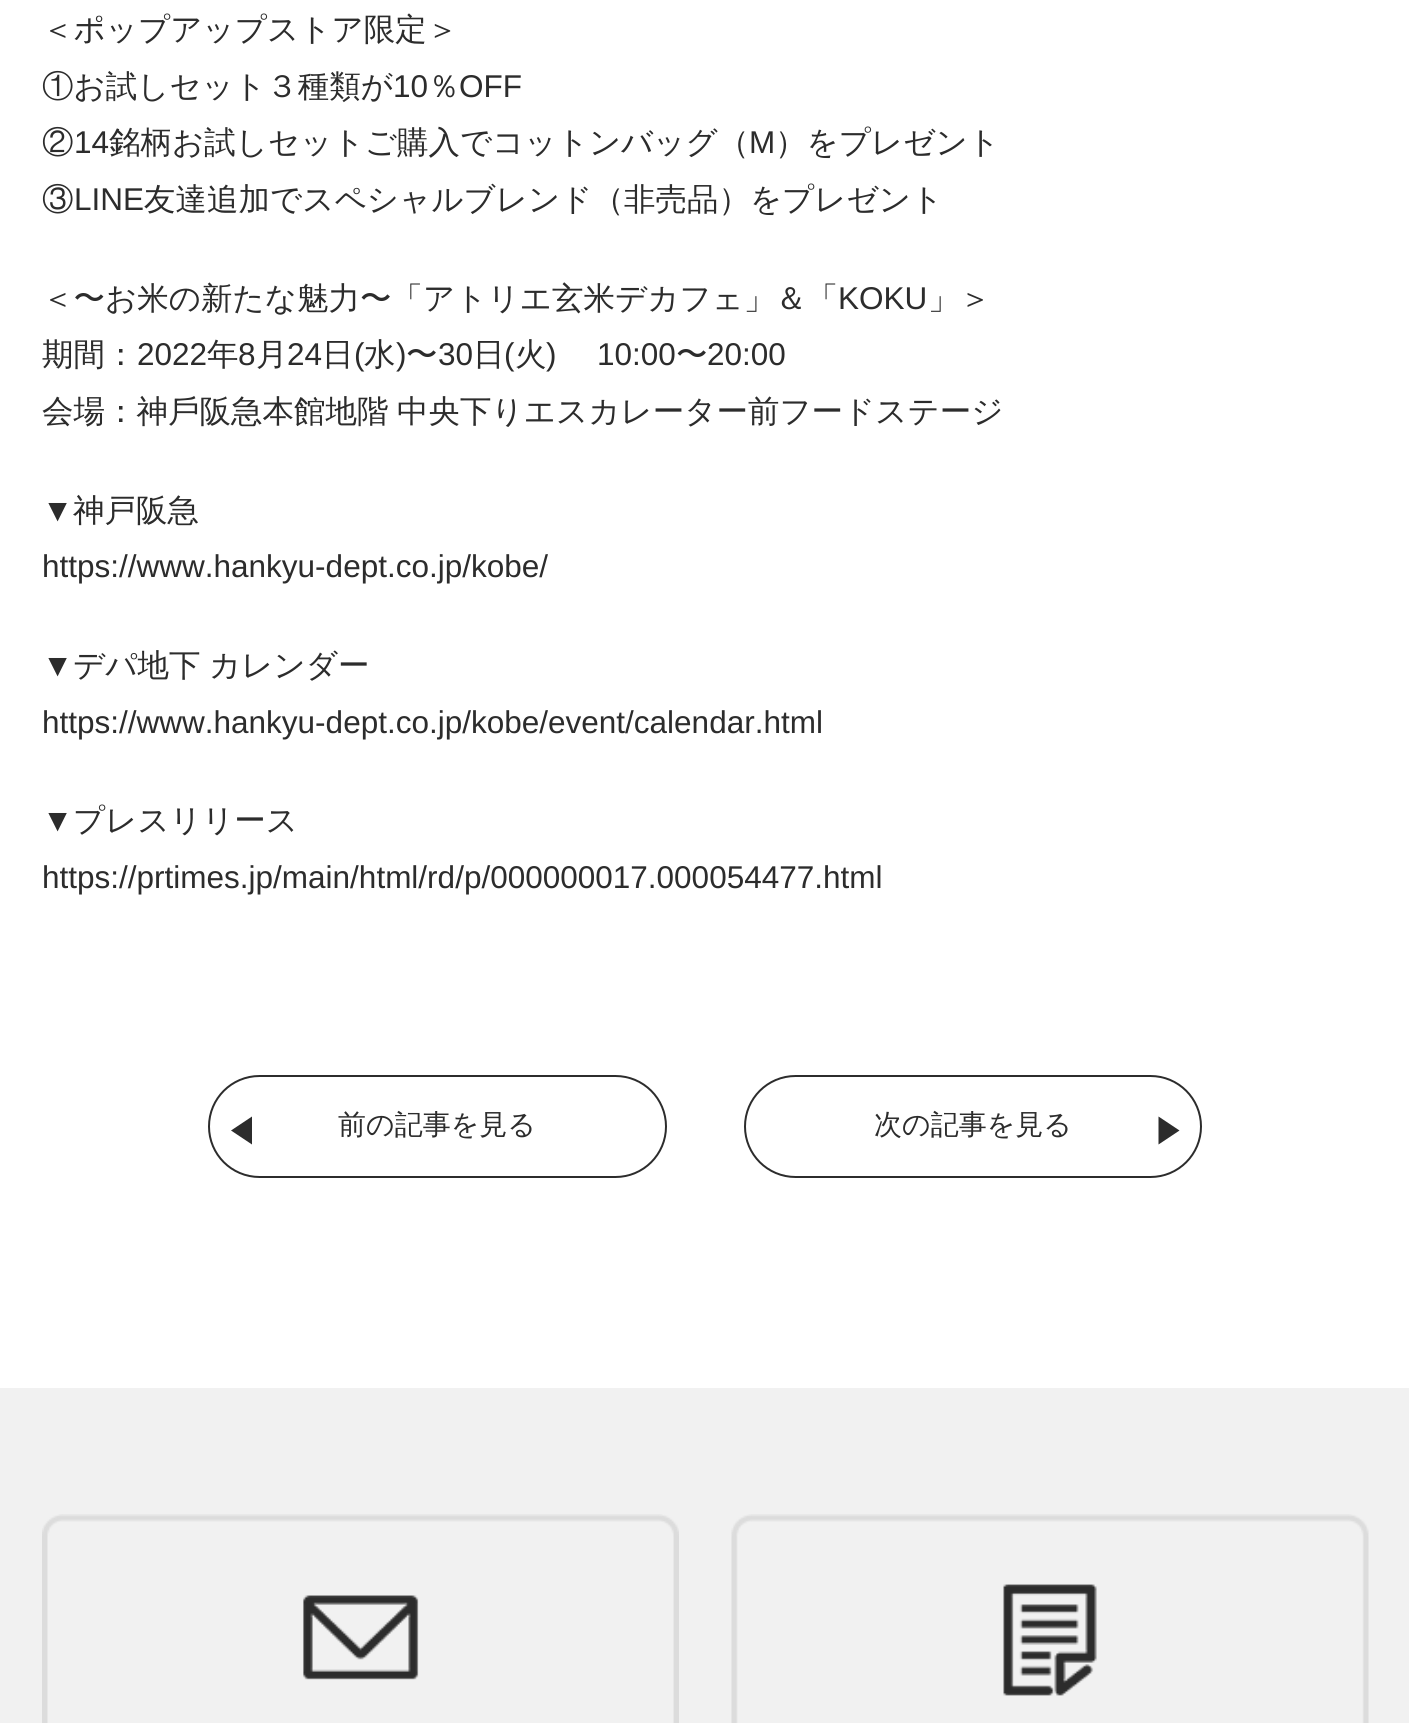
#include <cairo.h>
#include <math.h>
#include <stddef.h>


static void set_color(cairo_t *cr, unsigned color) {
    cairo_set_source_rgb(cr, (color >> 16) / 255.0, (color >> 8 & 255) / 255.0, (color & 255) / 255.0);
}

static void draw_text(cairo_t *cr, double x, double y, const char *s, const char *family, double size, int italic, int bold, unsigned color) {
    cairo_select_font_face(cr, family, italic ? CAIRO_FONT_SLANT_ITALIC : CAIRO_FONT_SLANT_NORMAL,
        bold ? CAIRO_FONT_WEIGHT_BOLD : CAIRO_FONT_WEIGHT_NORMAL);
    cairo_set_font_size(cr, size);
    set_color(cr, color);
    cairo_move_to(cr, x, y);
    cairo_show_text(cr, s);
}

static void draw_spaced(cairo_t *cr, double x, double y, const char *s, double letter, double word) {
    cairo_move_to(cr, x, y);
    while (*s) {
        char ch[5] = {0};
        int n = 0;
        do ch[n++] = *s++; while ((*s & 0xC0) == 0x80);
        cairo_show_text(cr, ch);
        cairo_rel_move_to(cr, letter + word * (*ch == ' '), 0);
    }
}

static void fill_rect(cairo_t *cr, double x, double y, double w, double h, unsigned color) {
    set_color(cr, color);
    cairo_rectangle(cr, x, y, w, h);
    cairo_fill(cr);
}

static void rounded_rect(cairo_t *cr, double x, double y, double w, double h, double r) {
    cairo_new_sub_path(cr);
    cairo_arc(cr, x + w - r, y + h - r, r, 0, M_PI / 2);
    cairo_arc(cr, x + r, y + h - r, r, M_PI / 2, M_PI);
    cairo_arc(cr, x + r, y + r, r, M_PI, 1.5 * M_PI);
    cairo_arc(cr, x + w - r, y + r, r, 1.5 * M_PI, 2 * M_PI);
    cairo_close_path(cr);
}

static void draw_image(cairo_t *cr, const char *path, double x, double y, double w, double h) {
    cairo_surface_t *image = cairo_image_surface_create_from_png(path);
    cairo_save(cr);
    cairo_set_source_surface(cr, image, x, y);
    cairo_rectangle(cr, x, y, w, h);
    cairo_fill(cr);
    cairo_restore(cr);
    cairo_surface_destroy(image);
}

int main(void) {
    cairo_surface_t *surface = cairo_image_surface_create(CAIRO_FORMAT_RGB24, 1409, 1723);
    cairo_t *cr = cairo_create(surface);
    cairo_font_options_t *options = cairo_font_options_create();
    cairo_font_options_set_hint_metrics(options, CAIRO_HINT_METRICS_OFF);
    cairo_font_options_set_hint_style(options, CAIRO_HINT_STYLE_NONE);
    cairo_set_font_options(cr, options);
    cairo_set_miter_limit(cr, 4);
    set_color(cr, 0xFFFFFF);
    cairo_paint(cr);
    draw_text(cr, 42, 40, "＜ポップアップストア限定＞", "WenQuanYi Zen Hei Medium", 31.5, 0, 0, 0x2C2C2C);
    draw_text(cr, 42, 97, "①お試しセット３種類が", "WenQuanYi Zen Hei Medium", 31.5, 0, 0, 0x2C2C2C);
    draw_text(cr, 393, 97, "10", "Liberation Sans", 31.5, 0, 0, 0x2C2C2C);
    draw_text(cr, 428, 97, "％", "WenQuanYi Zen Hei Medium", 31.5, 0, 0, 0x2C2C2C);
    draw_text(cr, 459, 97, "OFF", "Liberation Sans", 31.5, 0, 0, 0x2C2C2C);
    draw_text(cr, 42, 153, "②", "WenQuanYi Zen Hei Medium", 31.5, 0, 0, 0x2C2C2C);
    draw_text(cr, 74, 153, "14", "Liberation Sans", 31.5, 0, 0, 0x2C2C2C);
    draw_text(cr, 109, 153, "銘柄お試しセットご購⼊でコットンバッグ（", "WenQuanYi Zen Hei Medium", 31.5, 0, 0, 0x2C2C2C);
    draw_text(cr, 749, 153, "M", "Liberation Sans", 31.5, 0, 0, 0x2C2C2C);
    draw_text(cr, 775, 153, "）をプレゼント", "WenQuanYi Zen Hei Medium", 31.5, 0, 0, 0x2C2C2C);
    draw_text(cr, 42, 210, "③", "WenQuanYi Zen Hei Medium", 31.5, 0, 0, 0x2C2C2C);
    draw_text(cr, 74, 210, "LINE", "Liberation Sans", 31.5, 0, 0, 0x2C2C2C);
    draw_text(cr, 144, 210, "友達追加でスペシャルブレンド（⾮売品）をプレゼント", "WenQuanYi Zen Hei Medium", 31.5, 0, 0, 0x2C2C2C);
    draw_text(cr, 42, 309, "＜〜お⽶の新たな魅⼒〜「アトリエ⽞⽶デカフェ」＆「", "WenQuanYi Zen Hei Medium", 31.5, 0, 0, 0x2C2C2C);
    draw_text(cr, 838, 309, "KOKU", "Liberation Sans", 31.5, 0, 0, 0x2C2C2C);
    draw_text(cr, 928, 309, "」＞", "WenQuanYi Zen Hei Medium", 31.5, 0, 0, 0x2C2C2C);
    draw_text(cr, 42, 365, "期間：", "WenQuanYi Zen Hei Medium", 31.5, 0, 0, 0x2C2C2C);
    draw_text(cr, 137, 365, "2022", "Liberation Sans", 31.5, 0, 0, 0x2C2C2C);
    draw_text(cr, 207, 365, "年", "WenQuanYi Zen Hei Medium", 31.5, 0, 0, 0x2C2C2C);
    draw_text(cr, 238, 365, "8", "Liberation Sans", 31.5, 0, 0, 0x2C2C2C);
    draw_text(cr, 256, 365, "⽉", "WenQuanYi Zen Hei Medium", 31.5, 0, 0, 0x2C2C2C);
    draw_text(cr, 287, 365, "24", "Liberation Sans", 31.5, 0, 0, 0x2C2C2C);
    draw_text(cr, 322, 365, "⽇", "WenQuanYi Zen Hei Medium", 31.5, 0, 0, 0x2C2C2C);
    draw_text(cr, 354, 365, "(", "Liberation Sans", 31.5, 0, 0, 0x2C2C2C);
    draw_text(cr, 364, 365, "⽔", "WenQuanYi Zen Hei Medium", 31.5, 0, 0, 0x2C2C2C);
    draw_text(cr, 396, 365, ")", "Liberation Sans", 31.5, 0, 0, 0x2C2C2C);
    draw_text(cr, 406, 365, "〜", "WenQuanYi Zen Hei Medium", 31.5, 0, 0, 0x2C2C2C);
    draw_text(cr, 438, 365, "30", "Liberation Sans", 31.5, 0, 0, 0x2C2C2C);
    draw_text(cr, 473, 365, "⽇", "WenQuanYi Zen Hei Medium", 31.5, 0, 0, 0x2C2C2C);
    draw_text(cr, 504, 365, "(", "Liberation Sans", 31.5, 0, 0, 0x2C2C2C);
    draw_text(cr, 515, 365, "⽕", "WenQuanYi Zen Hei Medium", 31.5, 0, 0, 0x2C2C2C);
    draw_text(cr, 546, 365, ")", "Liberation Sans", 31.5, 0, 0, 0x2C2C2C);
    draw_text(cr, 597, 365, "10:00", "Liberation Sans", 31.5, 0, 0, 0x2C2C2C);
    draw_text(cr, 676, 365, "〜", "WenQuanYi Zen Hei Medium", 31.5, 0, 0, 0x2C2C2C);
    draw_text(cr, 707, 365, "20:00", "Liberation Sans", 31.5, 0, 0, 0x2C2C2C);
    cairo_select_font_face(cr, "WenQuanYi Zen Hei Medium", CAIRO_FONT_SLANT_NORMAL, CAIRO_FONT_WEIGHT_NORMAL);
    draw_spaced(cr, 42, 422, "会場：神⼾阪急本館地階 中央下りエスカレーター前フードステージ", 0, -1);
    draw_text(cr, 42, 521, "▼", "Liberation Sans", 31.5, 0, 0, 0x2C2C2C);
    draw_text(cr, 73, 521, "神戸阪急", "WenQuanYi Zen Hei Medium", 31.5, 0, 0, 0x2C2C2C);
    draw_text(cr, 42, 577, "https://www.hankyu-dept.co.jp/kobe/", "Liberation Sans", 31.5, 0, 0, 0x2C2C2C);
    draw_text(cr, 42, 676, "▼", "Liberation Sans", 31.5, 0, 0, 0x2C2C2C);
    cairo_select_font_face(cr, "WenQuanYi Zen Hei Medium", CAIRO_FONT_SLANT_NORMAL, CAIRO_FONT_WEIGHT_NORMAL);
    draw_spaced(cr, 73, 676, "デパ地下 カレンダー", 0, -1);
    draw_text(cr, 42, 733, "https://www.hankyu-dept.co.jp/kobe/event/calendar.html", "Liberation Sans", 31.5, 0, 0, 0x2C2C2C);
    draw_text(cr, 42, 831, "▼", "Liberation Sans", 31.5, 0, 0, 0x2C2C2C);
    draw_text(cr, 73, 831, "プレスリリース", "WenQuanYi Zen Hei Medium", 31.5, 0, 0, 0x2C2C2C);
    draw_text(cr, 42, 888, "https://prtimes.jp/main/html/rd/p/000000017.000054477.html", "Liberation Sans", 31.5, 0, 0, 0x2C2C2C);
    rounded_rect(cr, 209, 1076, 457, 101, 50.5);
    cairo_stroke(cr);
    cairo_new_path(cr);
    cairo_move_to(cr, 252, 1116.5);
    cairo_line_to(cr, 252, 1144.5);
    cairo_line_to(cr, 231, 1130.5);
    cairo_close_path(cr);
    cairo_fill(cr);
    draw_text(cr, 338, 1134, "前の記事を見る", "WenQuanYi Zen Hei Medium", 28, 0, 0, 0x2C2C2C);
    rounded_rect(cr, 745, 1076, 456, 101, 50.5);
    cairo_stroke(cr);
    draw_text(cr, 874, 1134, "次の記事を見る", "WenQuanYi Zen Hei Medium", 28, 0, 0, 0x2C2C2C);
    cairo_new_path(cr);
    cairo_move_to(cr, 1158.5, 1144.5);
    cairo_line_to(cr, 1158.5, 1116.5);
    cairo_line_to(cr, 1179.5, 1130.5);
    cairo_close_path(cr);
    cairo_fill(cr);
    fill_rect(cr, 0, 1388, 1409, 335, 0xF1F1F1);
    draw_image(cr, "assets/img1.png", 42, 1514, 637, 209);
    draw_image(cr, "assets/img2.png", 731, 1514, 638, 209);
    cairo_surface_write_to_png(surface, "output.png");
    cairo_font_options_destroy(options);
    cairo_destroy(cr);
    cairo_surface_destroy(surface);
    return 0;
}
